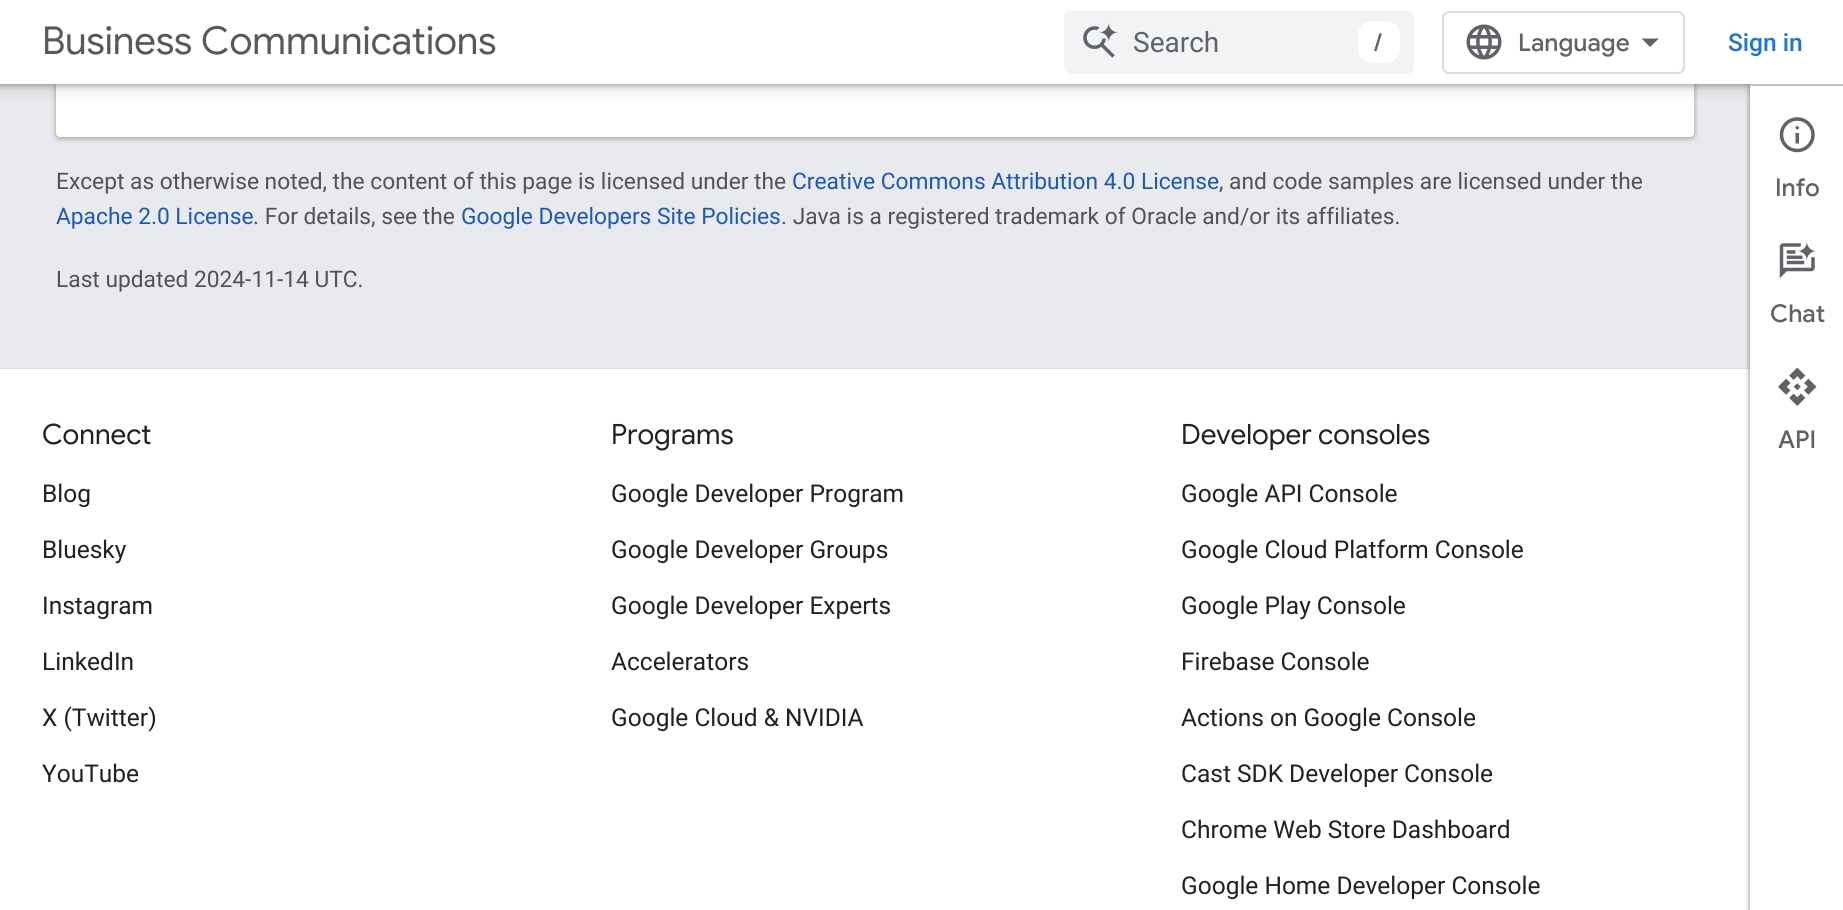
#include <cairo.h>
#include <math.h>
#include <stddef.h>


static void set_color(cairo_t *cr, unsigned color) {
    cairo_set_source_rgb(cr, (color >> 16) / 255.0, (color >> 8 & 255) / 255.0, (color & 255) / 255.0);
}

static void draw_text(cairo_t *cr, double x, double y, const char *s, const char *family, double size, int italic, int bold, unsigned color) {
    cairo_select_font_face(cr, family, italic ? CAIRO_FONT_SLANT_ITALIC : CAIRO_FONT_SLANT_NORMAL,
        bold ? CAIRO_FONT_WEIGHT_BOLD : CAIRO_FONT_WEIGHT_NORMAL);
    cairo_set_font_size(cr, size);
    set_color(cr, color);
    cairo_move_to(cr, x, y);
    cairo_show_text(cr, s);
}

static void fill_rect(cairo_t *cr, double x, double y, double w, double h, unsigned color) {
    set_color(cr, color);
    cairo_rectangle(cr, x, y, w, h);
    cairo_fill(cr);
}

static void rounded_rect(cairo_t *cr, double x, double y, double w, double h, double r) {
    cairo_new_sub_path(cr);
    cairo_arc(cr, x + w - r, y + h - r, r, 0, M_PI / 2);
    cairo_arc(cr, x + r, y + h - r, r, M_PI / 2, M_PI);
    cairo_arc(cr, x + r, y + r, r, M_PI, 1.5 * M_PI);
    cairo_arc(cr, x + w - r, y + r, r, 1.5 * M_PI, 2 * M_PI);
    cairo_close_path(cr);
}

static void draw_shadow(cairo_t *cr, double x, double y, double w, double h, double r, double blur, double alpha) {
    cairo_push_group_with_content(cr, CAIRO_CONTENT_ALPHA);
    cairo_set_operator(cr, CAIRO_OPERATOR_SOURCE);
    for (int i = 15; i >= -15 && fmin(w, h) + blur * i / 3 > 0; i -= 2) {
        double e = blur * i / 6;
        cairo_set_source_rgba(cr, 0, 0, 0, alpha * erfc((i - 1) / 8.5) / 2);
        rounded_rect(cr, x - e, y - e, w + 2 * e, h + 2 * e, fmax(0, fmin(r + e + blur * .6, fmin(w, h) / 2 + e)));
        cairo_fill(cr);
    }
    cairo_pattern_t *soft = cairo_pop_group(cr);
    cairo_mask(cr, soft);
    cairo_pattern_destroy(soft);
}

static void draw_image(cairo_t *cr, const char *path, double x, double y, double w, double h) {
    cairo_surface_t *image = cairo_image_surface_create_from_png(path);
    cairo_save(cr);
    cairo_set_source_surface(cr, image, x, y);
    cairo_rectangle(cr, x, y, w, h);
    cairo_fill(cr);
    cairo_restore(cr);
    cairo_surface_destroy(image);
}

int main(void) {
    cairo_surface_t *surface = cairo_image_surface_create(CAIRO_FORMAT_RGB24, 1843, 910);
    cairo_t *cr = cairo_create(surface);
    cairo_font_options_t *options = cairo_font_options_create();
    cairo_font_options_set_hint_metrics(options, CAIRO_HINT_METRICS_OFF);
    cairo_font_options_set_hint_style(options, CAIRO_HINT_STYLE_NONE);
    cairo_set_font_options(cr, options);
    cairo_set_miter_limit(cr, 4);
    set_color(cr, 0xE8EAED);
    cairo_paint(cr);
    set_color(cr, 0x3C4043);
    draw_shadow(cr, 54, -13, 1642, 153, 5, 2.5, 0.15);
    draw_shadow(cr, 56, -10, 1638, 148, 4, 2, 0.3);
    set_color(cr, 0xFFFFFF);
    rounded_rect(cr, 56, -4, 1638, 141, 4);
    cairo_fill(cr);
    set_color(cr, 0x3C4043);
    draw_shadow(cr, -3, -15, 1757, 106, 0, 5, 0.15);
    draw_shadow(cr, 0, -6, 1750, 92, 0, 2, 0.3);
    fill_rect(cr, 0, 368, 1750, 1, 0xDADCE0);
    fill_rect(cr, 0, 369, 1750, 541, 0xFFFFFF);
    set_color(cr, 0x000000);
    draw_shadow(cr, 1748, 84, 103, 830, 0, 2.5, 0.15);
    draw_shadow(cr, 1750, 86, 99, 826, 0, 2, 0.3);
    fill_rect(cr, 0, 0, 1843, 84, 0xFFFFFF);
    draw_text(cr, 42, 54, "Business Communications", "Google Sans", 38.5, 0, 0, 0x595959);
    set_color(cr, 0xF1F3F4);
    rounded_rect(cr, 1064, 11, 350, 63, 7);
    cairo_fill(cr);
    draw_image(cr, "assets/img1.png", 1083, 23, 35, 35);
    draw_text(cr, 1133, 52, "Search", "Roboto", 28, 0, 0, 0x5F6368);
    set_color(cr, 0xFFFFFF);
    rounded_rect(cr, 1358, 21, 42, 42, 14);
    cairo_fill(cr);
    draw_text(cr, 1374, 51, "/", "Google Sans Medium", 24.5, 0, 0, 0x5F6368);
    rounded_rect(cr, 1443, 12, 241, 61, 6);
    set_color(cr, 0xDADCE0);
    cairo_stroke(cr);
    draw_image(cr, "assets/img2.png", 1466, 24, 36, 36);
    draw_text(cr, 1518, 51, "Language", "Google Sans Medium", 24.5, 0, 0, 0x5F6368);
    cairo_new_path(cr);
    cairo_move_to(cr, 1650, 47);
    cairo_line_to(cr, 1641.5, 38.5);
    cairo_line_to(cr, 1659, 38.5);
    cairo_close_path(cr);
    cairo_fill(cr);
    draw_text(cr, 1728, 51, "Sign in", "Roboto Medium", 24.5, 0, 0, 0x1A73E8);
    draw_text(cr, 56, 189, "Except as otherwise noted, the content of this page is licensed under the", "Roboto", 22.75, 0, 0, 0x515253);
    draw_text(cr, 792, 189, "Creative Commons Attribution 4.0 License", "Roboto", 22.75, 0, 0, 0x185ABC);
    draw_text(cr, 1219, 189, ", and code samples are licensed under the", "Roboto", 22.75, 0, 0, 0x515253);
    draw_text(cr, 56, 224, "Apache 2.0 License", "Roboto", 22.75, 0, 0, 0x185ABC);
    draw_text(cr, 253, 224, ". For details, see the", "Roboto", 22.75, 0, 0, 0x515253);
    draw_text(cr, 461, 224, "Google Developers Site Policies", "Roboto", 22.75, 0, 0, 0x185ABC);
    draw_text(cr, 781, 224, ". Java is a registered trademark of Oracle and/or its affiliates.", "Roboto", 22.75, 0, 0, 0x515253);
    draw_text(cr, 56, 287, "Last updated 2024-11-14 UTC.", "Roboto", 22.75, 0, 0, 0x515253);
    fill_rect(cr, 1750, 86, 93, 824, 0xFFFFFF);
    fill_rect(cr, 1750, 84, 93, 2, 0xBDC1C6);
    draw_image(cr, "assets/img3.png", 1779, 117, 36, 36);
    draw_text(cr, 1775, 196, "Info", "Google Sans Medium", 24.5, 0, 0, 0x5F6368);
    draw_image(cr, "assets/img4.png", 1779, 242, 37, 37);
    draw_text(cr, 1770, 322, "Chat", "Google Sans Medium", 24.5, 0, 0, 0x5F6368);
    draw_image(cr, "assets/img5.png", 1778, 368, 39, 38);
    draw_text(cr, 1778, 448, "API", "Google Sans Medium", 24.5, 0, 0, 0x5F6368);
    draw_text(cr, 42, 444, "Connect", "Google Sans", 28, 0, 0, 0x202124);
    draw_text(cr, 42, 502, "Blog", "Roboto", 24.5, 0, 0, 0x202124);
    draw_text(cr, 42, 558, "Bluesky", "Roboto", 24.5, 0, 0, 0x202124);
    draw_text(cr, 42, 614, "Instagram", "Roboto", 24.5, 0, 0, 0x202124);
    draw_text(cr, 42, 670, "LinkedIn", "Roboto", 24.5, 0, 0, 0x202124);
    draw_text(cr, 42, 726, "X (Twitter)", "Roboto", 24.5, 0, 0, 0x202124);
    draw_text(cr, 42, 782, "YouTube", "Roboto", 24.5, 0, 0, 0x202124);
    draw_text(cr, 611, 444, "Programs", "Google Sans", 28, 0, 0, 0x202124);
    draw_text(cr, 611, 502, "Google Developer Program", "Roboto", 24.5, 0, 0, 0x202124);
    draw_text(cr, 611, 558, "Google Developer Groups", "Roboto", 24.5, 0, 0, 0x202124);
    draw_text(cr, 611, 614, "Google Developer Experts", "Roboto", 24.5, 0, 0, 0x202124);
    draw_text(cr, 611, 670, "Accelerators", "Roboto", 24.5, 0, 0, 0x202124);
    draw_text(cr, 611, 726, "Google Cloud & NVIDIA", "Roboto", 24.5, 0, 0, 0x202124);
    draw_text(cr, 1181, 444, "Developer consoles", "Google Sans", 28, 0, 0, 0x202124);
    draw_text(cr, 1181, 502, "Google API Console", "Roboto", 24.5, 0, 0, 0x202124);
    draw_text(cr, 1181, 558, "Google Cloud Platform Console", "Roboto", 24.5, 0, 0, 0x202124);
    draw_text(cr, 1181, 614, "Google Play Console", "Roboto", 24.5, 0, 0, 0x202124);
    draw_text(cr, 1181, 670, "Firebase Console", "Roboto", 24.5, 0, 0, 0x202124);
    draw_text(cr, 1181, 726, "Actions on Google Console", "Roboto", 24.5, 0, 0, 0x202124);
    draw_text(cr, 1181, 782, "Cast SDK Developer Console", "Roboto", 24.5, 0, 0, 0x202124);
    draw_text(cr, 1181, 838, "Chrome Web Store Dashboard", "Roboto", 24.5, 0, 0, 0x202124);
    draw_text(cr, 1181, 894, "Google Home Developer Console", "Roboto", 24.5, 0, 0, 0x202124);
    cairo_surface_write_to_png(surface, "output.png");
    cairo_font_options_destroy(options);
    cairo_destroy(cr);
    cairo_surface_destroy(surface);
    return 0;
}
